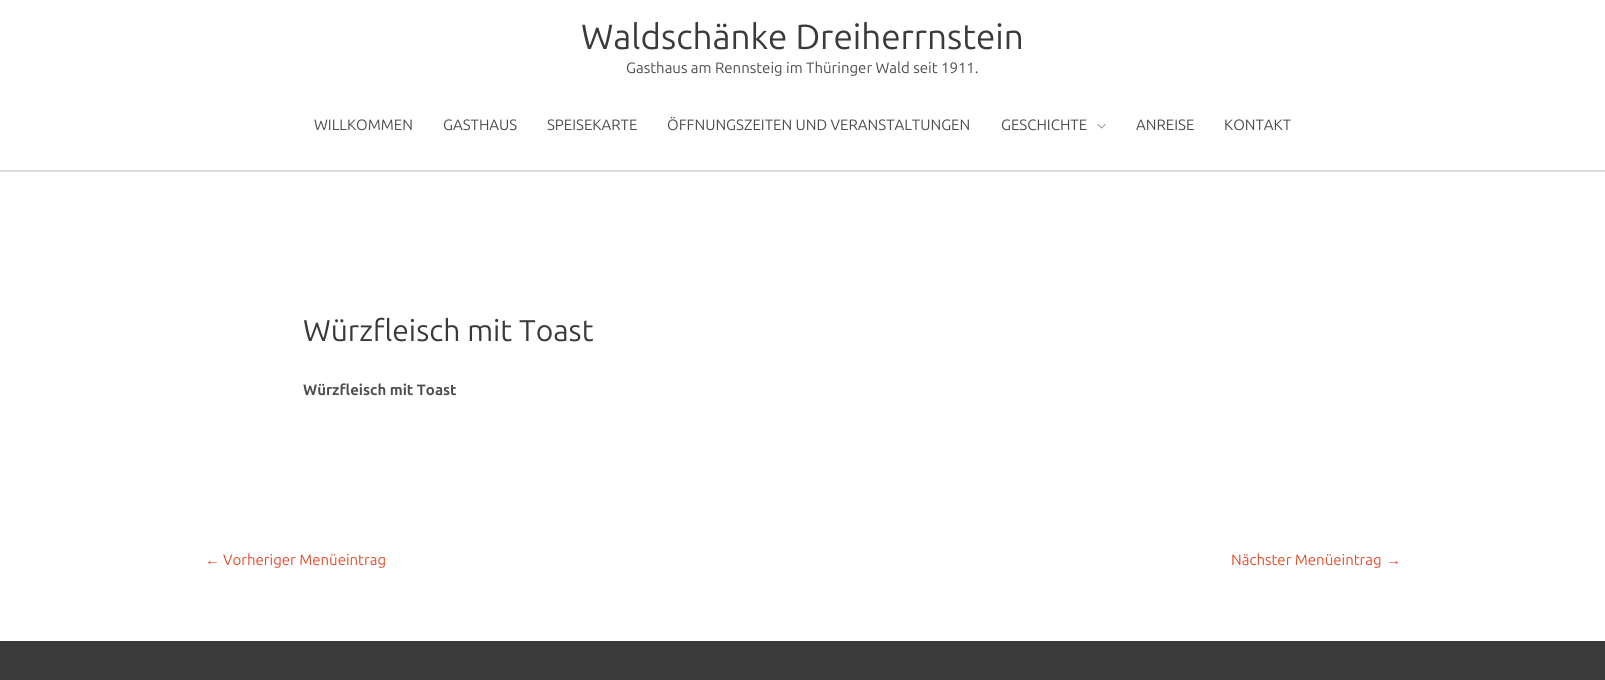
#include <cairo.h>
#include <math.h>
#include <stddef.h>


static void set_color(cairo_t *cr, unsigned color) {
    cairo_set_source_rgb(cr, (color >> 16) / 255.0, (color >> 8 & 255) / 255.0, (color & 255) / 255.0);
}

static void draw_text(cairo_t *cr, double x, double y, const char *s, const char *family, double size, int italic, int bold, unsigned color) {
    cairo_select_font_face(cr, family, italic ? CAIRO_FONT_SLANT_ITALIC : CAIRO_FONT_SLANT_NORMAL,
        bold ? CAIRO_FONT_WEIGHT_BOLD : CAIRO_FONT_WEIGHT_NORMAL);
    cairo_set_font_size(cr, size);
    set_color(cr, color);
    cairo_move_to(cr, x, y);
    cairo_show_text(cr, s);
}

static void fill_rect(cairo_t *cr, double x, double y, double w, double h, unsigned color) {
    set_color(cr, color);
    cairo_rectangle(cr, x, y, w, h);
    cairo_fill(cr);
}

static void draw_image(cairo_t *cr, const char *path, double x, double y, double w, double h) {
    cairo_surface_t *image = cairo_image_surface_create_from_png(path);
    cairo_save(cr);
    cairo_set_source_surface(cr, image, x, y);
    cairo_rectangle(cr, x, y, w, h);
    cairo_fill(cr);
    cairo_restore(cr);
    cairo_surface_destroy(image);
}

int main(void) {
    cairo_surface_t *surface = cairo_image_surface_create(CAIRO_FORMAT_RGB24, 1605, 680);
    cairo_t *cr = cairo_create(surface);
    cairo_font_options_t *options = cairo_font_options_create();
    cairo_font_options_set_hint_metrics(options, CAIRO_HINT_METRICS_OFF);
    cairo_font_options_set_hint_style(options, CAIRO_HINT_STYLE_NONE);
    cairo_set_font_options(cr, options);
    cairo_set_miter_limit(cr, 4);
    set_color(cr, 0xFFFFFF);
    cairo_paint(cr);
    fill_rect(cr, 0, 170, 1605, 2, 0xDDDDDD);
    draw_text(cr, 581, 49, "Waldschänke Dreiherrnstein", "Ubuntu", 35, 0, 0, 0x3A3A3A);
    draw_text(cr, 626, 73, "Gasthaus am Rennsteig im Thüringer Wald seit 1911.", "Ubuntu", 15, 0, 0, 0x4C4C4C);
    draw_text(cr, 314, 130, "WILLKOMMEN", "Ubuntu", 15, 0, 0, 0x4C4C4C);
    draw_text(cr, 443, 130, "GASTHAUS", "Ubuntu", 15, 0, 0, 0x4C4C4C);
    draw_text(cr, 547, 130, "SPEISEKARTE", "Ubuntu", 15, 0, 0, 0x4C4C4C);
    draw_text(cr, 667, 130, "ÖFFNUNGSZEITEN UND VERANSTALTUNGEN", "Ubuntu", 15, 0, 0, 0x4C4C4C);
    draw_text(cr, 1001, 130, "GESCHICHTE", "Ubuntu", 15, 0, 0, 0x4C4C4C);
    draw_image(cr, "assets/img1.png", 1097, 124, 9, 5);
    draw_text(cr, 1136, 130, "ANREISE", "Ubuntu", 15, 0, 0, 0x4C4C4C);
    draw_text(cr, 1224, 130, "KONTAKT", "Ubuntu", 15, 0, 0, 0x4C4C4C);
    draw_text(cr, 303, 341, "Würzfleisch mit Toast", "Ubuntu", 30, 0, 0, 0x3A3A3A);
    draw_text(cr, 303, 395, "Würzfleisch mit Toast", "Ubuntu", 15, 0, 1, 0x4C4C4C);
    draw_text(cr, 205, 565, "←", "Liberation Serif", 15, 0, 0, 0xE44C2A);
    draw_text(cr, 223, 565, "Vorheriger Menüeintrag", "Ubuntu", 15, 0, 0, 0xE44C2A);
    draw_text(cr, 1231, 565, "Nächster Menüeintrag", "Ubuntu", 15, 0, 0, 0xE44C2A);
    draw_text(cr, 1386, 565, "→", "Liberation Serif", 15, 0, 0, 0xE44C2A);
    fill_rect(cr, 0, 641, 1605, 39, 0x3A3A3A);
    cairo_surface_write_to_png(surface, "output.png");
    cairo_font_options_destroy(options);
    cairo_destroy(cr);
    cairo_surface_destroy(surface);
    return 0;
}
